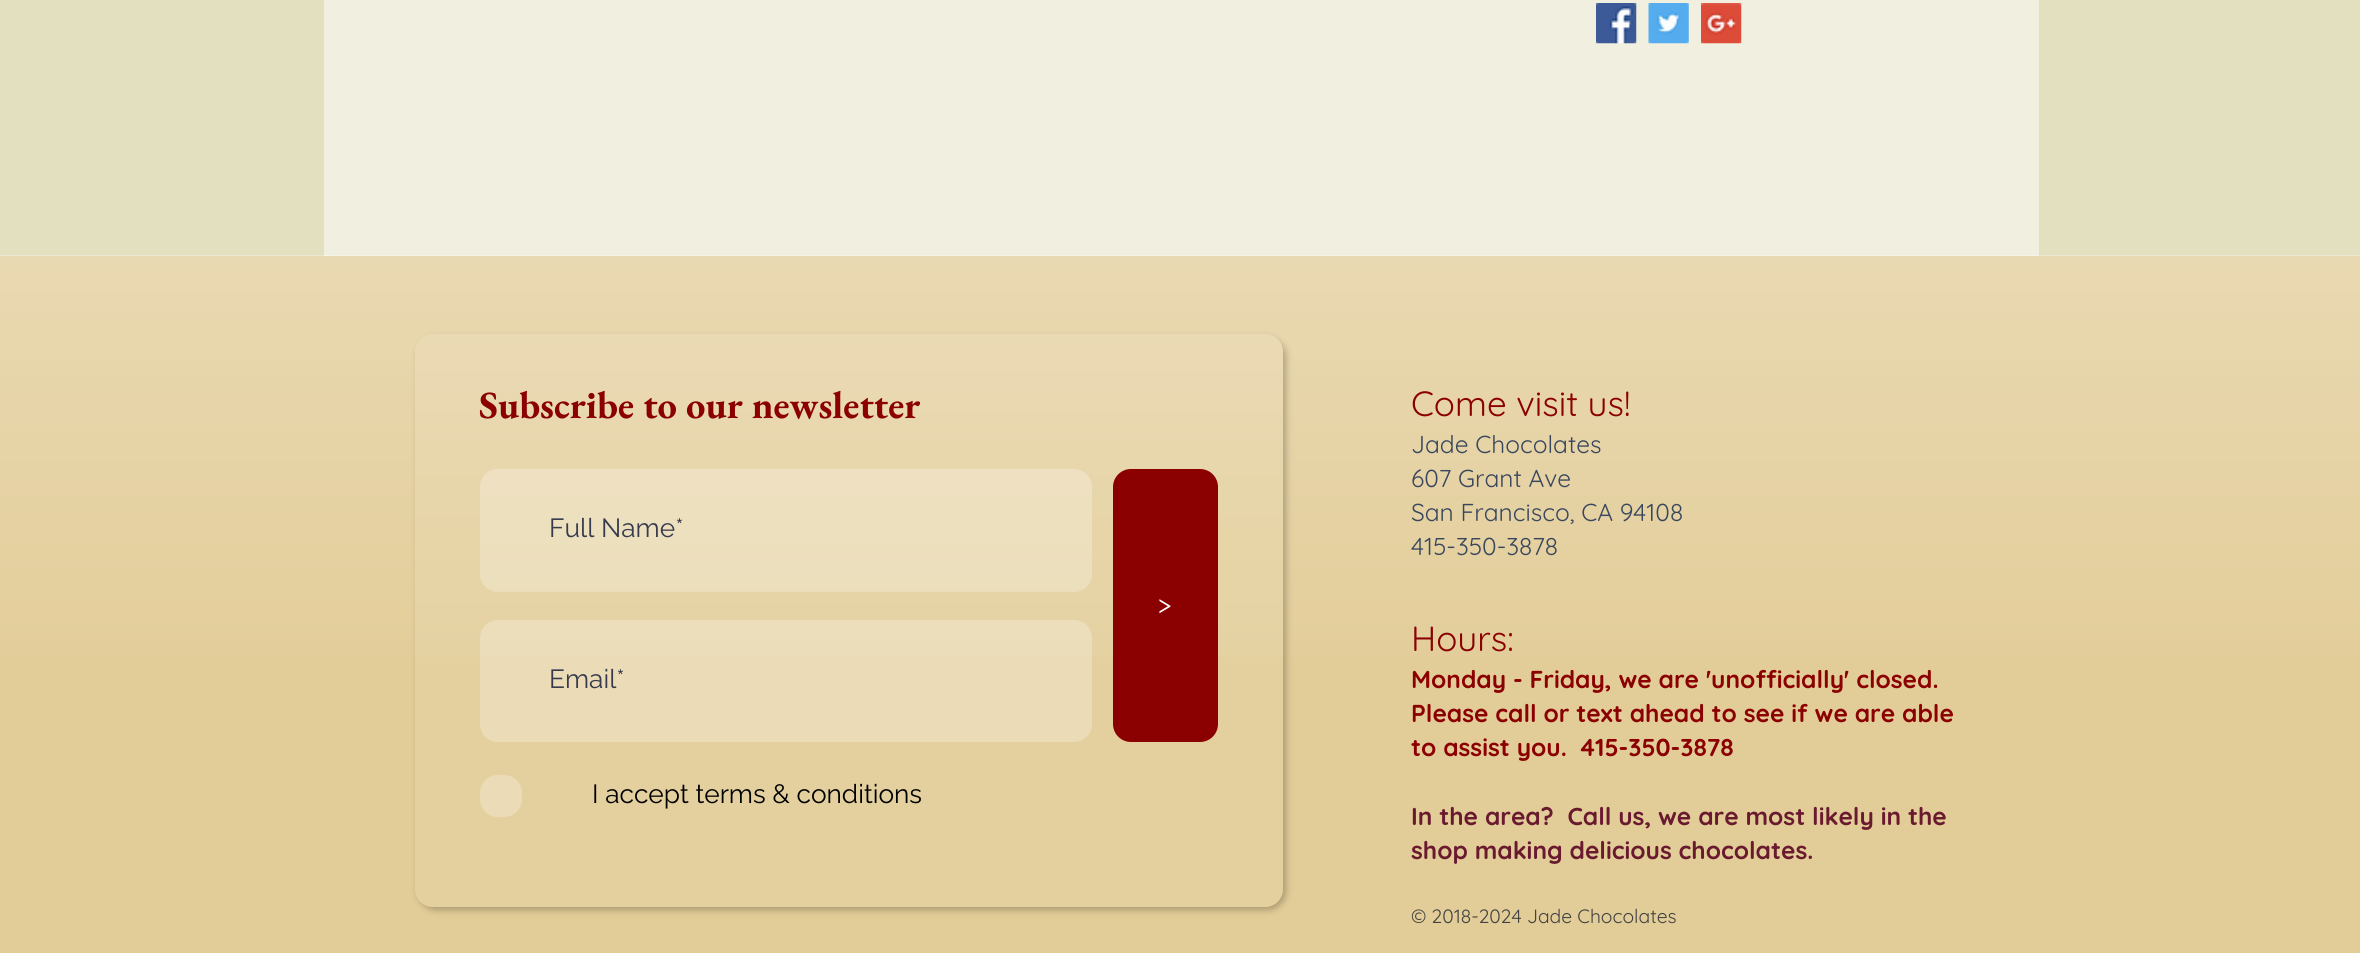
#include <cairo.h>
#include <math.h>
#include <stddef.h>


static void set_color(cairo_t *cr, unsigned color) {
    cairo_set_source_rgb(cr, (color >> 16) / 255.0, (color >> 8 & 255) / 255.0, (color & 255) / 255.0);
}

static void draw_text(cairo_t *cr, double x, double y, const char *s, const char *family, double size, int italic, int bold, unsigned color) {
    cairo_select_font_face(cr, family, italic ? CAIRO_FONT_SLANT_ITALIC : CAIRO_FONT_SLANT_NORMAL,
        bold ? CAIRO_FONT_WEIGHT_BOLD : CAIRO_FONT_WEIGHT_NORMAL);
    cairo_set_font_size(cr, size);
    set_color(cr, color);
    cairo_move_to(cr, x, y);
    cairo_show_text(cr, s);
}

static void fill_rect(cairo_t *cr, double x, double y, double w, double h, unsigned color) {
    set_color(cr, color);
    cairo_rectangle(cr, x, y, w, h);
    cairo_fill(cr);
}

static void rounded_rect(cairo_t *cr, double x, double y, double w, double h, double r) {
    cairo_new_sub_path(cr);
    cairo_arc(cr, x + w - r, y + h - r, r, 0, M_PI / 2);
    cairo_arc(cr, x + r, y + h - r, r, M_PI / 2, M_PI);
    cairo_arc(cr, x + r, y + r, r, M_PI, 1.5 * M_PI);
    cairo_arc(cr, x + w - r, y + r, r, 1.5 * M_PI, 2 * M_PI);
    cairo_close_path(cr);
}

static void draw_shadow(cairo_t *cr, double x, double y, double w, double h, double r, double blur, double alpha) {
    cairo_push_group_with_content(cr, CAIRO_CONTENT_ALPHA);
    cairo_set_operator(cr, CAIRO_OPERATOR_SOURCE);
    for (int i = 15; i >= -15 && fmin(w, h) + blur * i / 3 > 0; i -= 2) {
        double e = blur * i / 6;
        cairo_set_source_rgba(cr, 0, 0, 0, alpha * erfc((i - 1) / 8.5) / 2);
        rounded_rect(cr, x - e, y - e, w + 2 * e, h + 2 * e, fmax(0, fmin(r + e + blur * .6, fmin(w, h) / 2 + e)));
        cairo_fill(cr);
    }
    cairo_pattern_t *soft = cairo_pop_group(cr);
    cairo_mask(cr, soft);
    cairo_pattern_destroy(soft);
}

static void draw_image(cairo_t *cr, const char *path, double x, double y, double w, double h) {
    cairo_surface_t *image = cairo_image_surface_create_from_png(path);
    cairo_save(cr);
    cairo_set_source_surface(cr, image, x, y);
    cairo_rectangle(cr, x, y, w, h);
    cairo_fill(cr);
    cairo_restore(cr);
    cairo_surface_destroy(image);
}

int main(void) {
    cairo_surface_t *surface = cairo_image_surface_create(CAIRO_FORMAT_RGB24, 2360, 953);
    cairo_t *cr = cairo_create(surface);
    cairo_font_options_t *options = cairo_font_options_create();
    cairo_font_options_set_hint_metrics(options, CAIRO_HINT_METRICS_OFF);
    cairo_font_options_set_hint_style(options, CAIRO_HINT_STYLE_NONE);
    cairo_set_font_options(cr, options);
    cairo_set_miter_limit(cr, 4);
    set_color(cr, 0xE3E0C0);
    cairo_paint(cr);
    fill_rect(cr, 324, 0, 1715, 256, 0xF1F0E0);
    draw_image(cr, "assets/img1.png", 1596, 3, 41, 41);
    draw_image(cr, "assets/img2.png", 1648, 3, 41, 41);
    draw_image(cr, "assets/img3.png", 1701, 3, 41, 41);
    fill_rect(cr, 0, 256, 2360, 697, 0xE2CC97);
    draw_image(cr, "assets/img4.png", 0, 255, 2360, 402);
    cairo_save(cr);
    cairo_set_fill_rule(cr, CAIRO_FILL_RULE_EVEN_ODD);
    cairo_new_path(cr);
    cairo_move_to(cr, 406, 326);
    cairo_line_to(cr, 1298, 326);
    cairo_line_to(cr, 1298, 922);
    cairo_line_to(cr, 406, 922);
    cairo_close_path(cr);
    cairo_move_to(cr, 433, 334);
    cairo_line_to(cr, 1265, 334);
    cairo_curve_to(cr, 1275, 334, 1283, 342, 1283, 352);
    cairo_line_to(cr, 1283, 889);
    cairo_curve_to(cr, 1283, 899, 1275, 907, 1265, 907);
    cairo_line_to(cr, 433, 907);
    cairo_curve_to(cr, 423, 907, 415, 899, 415, 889);
    cairo_line_to(cr, 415, 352);
    cairo_curve_to(cr, 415, 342, 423, 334, 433, 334);
    cairo_close_path(cr);
    cairo_clip(cr);
    set_color(cr, 0x000000);
    draw_shadow(cr, 418, 338, 868, 572, 18, 3.5, 0.25);
    cairo_restore(cr);
    cairo_set_source_rgba(cr, 1, 1, 1, 0.08);
    rounded_rect(cr, 415, 334, 868, 573, 18);
    cairo_fill(cr);
    draw_text(cr, 479, 418, "Subscribe to our newsletter", "EB Garamond", 38.5, 0, 1, 0x8B0000);
    cairo_set_source_rgba(cr, 1, 1, 1, 0.25);
    rounded_rect(cr, 480, 469, 612, 123, 18);
    cairo_fill(cr);
    draw_text(cr, 549, 537, "Full Name*", "Raleway", 26.25, 0, 0, 0x373B4D);
    set_color(cr, 0x8B0000);
    rounded_rect(cr, 1113, 469, 105, 273, 18);
    cairo_fill(cr);
    draw_text(cr, 1158, 613, ">", "Raleway", 26.25, 0, 0, 0xFFFFFF);
    cairo_set_source_rgba(cr, 1, 1, 1, 0.25);
    rounded_rect(cr, 480, 620, 612, 122, 18);
    cairo_fill(cr);
    draw_text(cr, 549, 688, "Email*", "Raleway", 26.25, 0, 0, 0x373B4D);
    set_color(cr, 0xEBDCB7);
    rounded_rect(cr, 480, 775, 42, 42, 18);
    cairo_fill(cr);
    draw_text(cr, 592, 803, "I accept terms & conditions", "Raleway", 26.25, 0, 0, 0x000000);
    draw_text(cr, 1411, 416, "Come visit us!", "Quicksand", 35, 0, 0, 0x8B0000);
    draw_text(cr, 1411, 453, "Jade Chocolates", "Quicksand", 24.5, 0, 0, 0x39475E);
    draw_text(cr, 1411, 487, "607 Grant Ave", "Quicksand", 24.5, 0, 0, 0x39475E);
    draw_text(cr, 1411, 521, "San Francisco, CA 94108", "Quicksand", 24.5, 0, 0, 0x39475E);
    draw_text(cr, 1411, 555, "415-350-3878", "Quicksand", 24.5, 0, 0, 0x39475E);
    draw_text(cr, 1411, 651, "Hours:", "Quicksand", 35, 0, 0, 0x8B0000);
    draw_text(cr, 1411, 688, "Monday - Friday, we are 'unofficially' closed.", "Quicksand", 24.5, 0, 1, 0x8B0000);
    draw_text(cr, 1411, 722, "Please call or text ahead to see if we are able", "Quicksand", 24.5, 0, 1, 0x8B0000);
    draw_text(cr, 1411, 756, "to assist you.  415-350-3878", "Quicksand", 24.5, 0, 1, 0x8B0000);
    draw_text(cr, 1411, 825, "In the area?  Call us, we are most likely in the", "Quicksand", 24.5, 0, 1, 0x6A1A2F);
    draw_text(cr, 1411, 859, "shop making delicious chocolates.", "Quicksand", 24.5, 0, 1, 0x6A1A2F);
    draw_text(cr, 1411, 923, "© 2018-2024 Jade Chocolates", "Quicksand", 19.25, 0, 0, 0x424242);
    cairo_surface_write_to_png(surface, "output.png");
    cairo_font_options_destroy(options);
    cairo_destroy(cr);
    cairo_surface_destroy(surface);
    return 0;
}
